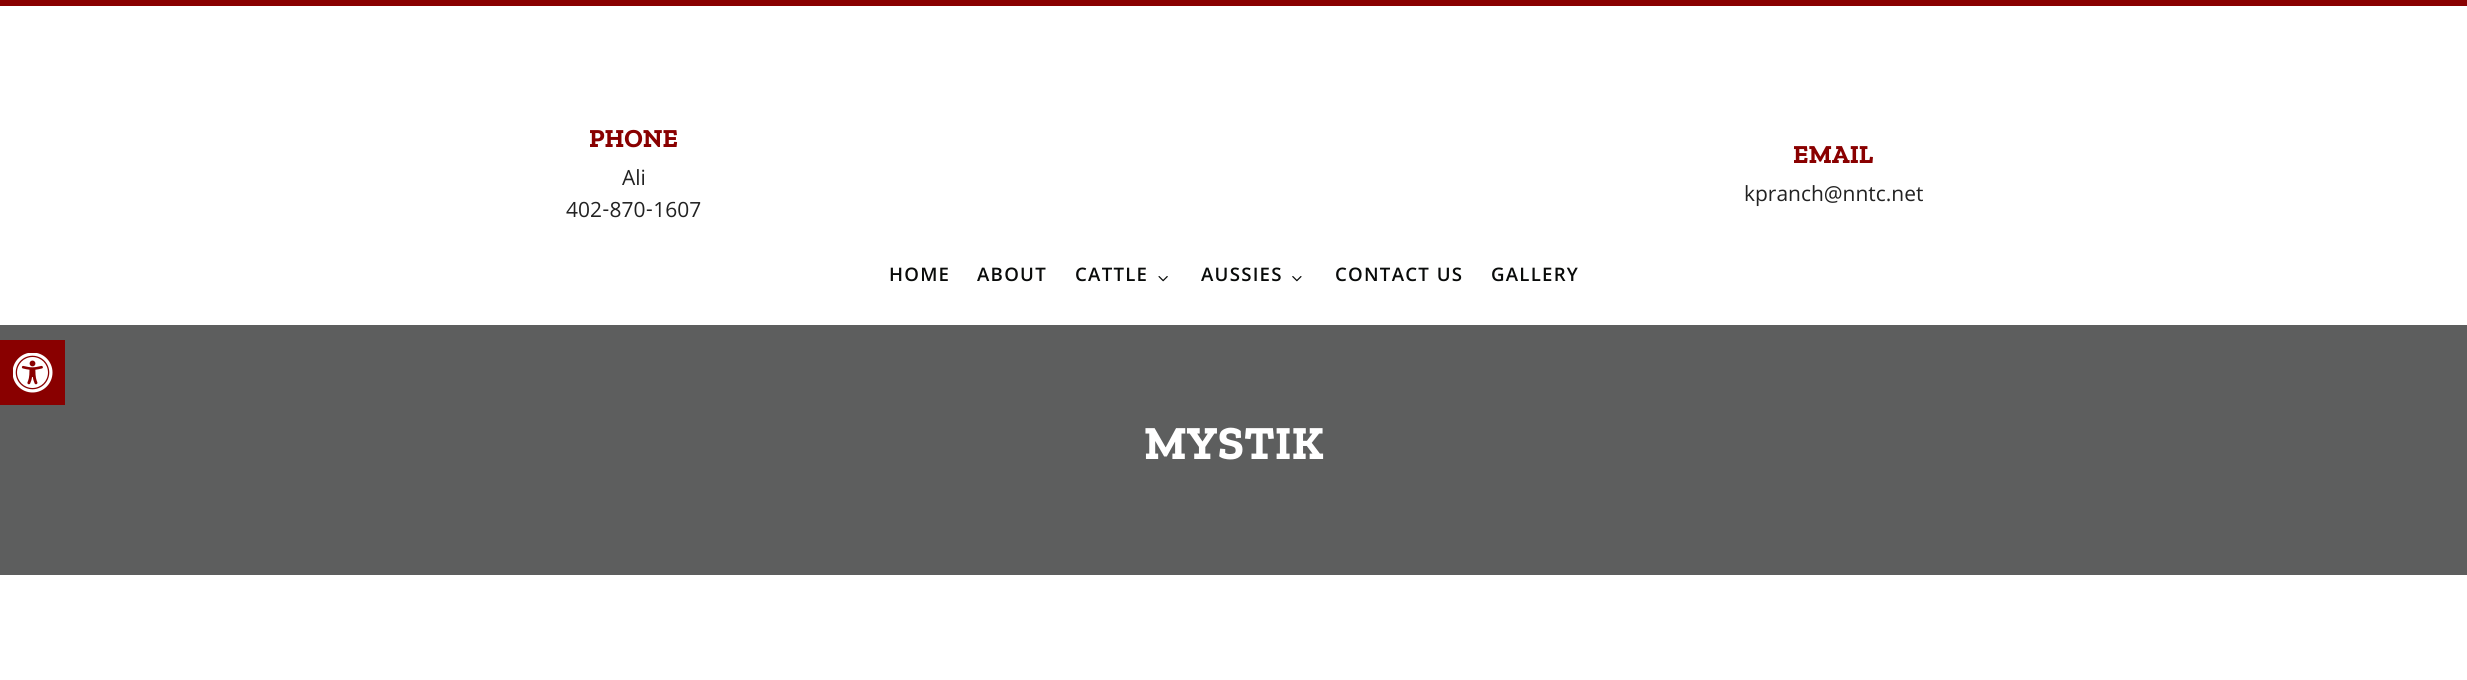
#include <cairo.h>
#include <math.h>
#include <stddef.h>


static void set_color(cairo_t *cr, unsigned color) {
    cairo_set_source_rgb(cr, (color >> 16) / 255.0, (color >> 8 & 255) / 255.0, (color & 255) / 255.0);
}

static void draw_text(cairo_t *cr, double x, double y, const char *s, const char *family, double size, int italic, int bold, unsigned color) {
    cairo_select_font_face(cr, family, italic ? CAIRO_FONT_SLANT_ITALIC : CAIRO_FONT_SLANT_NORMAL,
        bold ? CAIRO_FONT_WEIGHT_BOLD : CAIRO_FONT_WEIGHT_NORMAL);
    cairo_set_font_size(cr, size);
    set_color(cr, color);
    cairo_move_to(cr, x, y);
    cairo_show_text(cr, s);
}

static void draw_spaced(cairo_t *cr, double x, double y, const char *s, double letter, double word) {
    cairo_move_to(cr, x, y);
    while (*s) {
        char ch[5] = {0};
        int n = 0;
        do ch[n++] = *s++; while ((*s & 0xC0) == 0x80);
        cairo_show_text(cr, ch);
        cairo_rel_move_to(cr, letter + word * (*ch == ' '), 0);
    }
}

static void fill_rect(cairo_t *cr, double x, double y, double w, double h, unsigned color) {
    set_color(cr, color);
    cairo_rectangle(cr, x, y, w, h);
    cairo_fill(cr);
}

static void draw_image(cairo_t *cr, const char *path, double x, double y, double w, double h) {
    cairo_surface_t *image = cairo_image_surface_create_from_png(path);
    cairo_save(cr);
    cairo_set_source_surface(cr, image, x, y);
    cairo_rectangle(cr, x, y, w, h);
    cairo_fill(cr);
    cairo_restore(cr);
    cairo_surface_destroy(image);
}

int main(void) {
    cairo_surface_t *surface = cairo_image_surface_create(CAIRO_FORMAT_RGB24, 2467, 680);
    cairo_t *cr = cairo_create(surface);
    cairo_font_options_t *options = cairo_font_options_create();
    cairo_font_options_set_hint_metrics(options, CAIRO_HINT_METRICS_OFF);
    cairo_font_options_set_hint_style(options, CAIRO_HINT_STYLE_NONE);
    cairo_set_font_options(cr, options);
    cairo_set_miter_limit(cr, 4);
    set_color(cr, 0xFFFFFF);
    cairo_paint(cr);
    fill_rect(cr, 0, 325, 2467, 250, 0x5D5E5E);
    fill_rect(cr, 0, 340, 65, 65, 0x890000);
    draw_image(cr, "assets/img1.png", 13, 353, 40, 40);
    fill_rect(cr, 0, 0, 2467, 6, 0x890000);
    draw_text(cr, 589, 147, "PHONE", "Zilla Slab", 26, 0, 1, 0x890000);
    draw_text(cr, 622, 185, "Ali", "Khula", 22.5, 0, 0, 0x222222);
    draw_text(cr, 566, 217, "402-870-1607", "Khula", 22.5, 0, 0, 0x222222);
    draw_text(cr, 1793, 163, "EMAIL", "Zilla Slab", 26, 0, 1, 0x890000);
    draw_text(cr, 1744, 201, "kpranch@nntc.net", "Khula", 22.5, 0, 0, 0x222222);
    cairo_select_font_face(cr, "Khula SemiBold", CAIRO_FONT_SLANT_NORMAL, CAIRO_FONT_WEIGHT_NORMAL);
    cairo_set_font_size(cr, 20);
    set_color(cr, 0x090B0A);
    draw_spaced(cr, 889, 281, "HOME", 1.25, 0);
    draw_spaced(cr, 977, 281, "ABOUT", 1.25, 0);
    draw_spaced(cr, 1075, 281, "CATTLE", 1.25, 0);
    draw_image(cr, "assets/img2.png", 1158, 276, 10, 6);
    draw_spaced(cr, 1201, 281, "AUSSIES", 1.25, 0);
    draw_image(cr, "assets/img3.png", 1292, 276, 10, 6);
    draw_spaced(cr, 1335, 281, "CONTACT US", 1.25, 0);
    draw_spaced(cr, 1491, 281, "GALLERY", 1.25, 0);
    draw_text(cr, 1144, 459, "MYSTIK", "Zilla Slab", 47.5, 0, 1, 0xFFFFFF);
    cairo_surface_write_to_png(surface, "output.png");
    cairo_font_options_destroy(options);
    cairo_destroy(cr);
    cairo_surface_destroy(surface);
    return 0;
}
